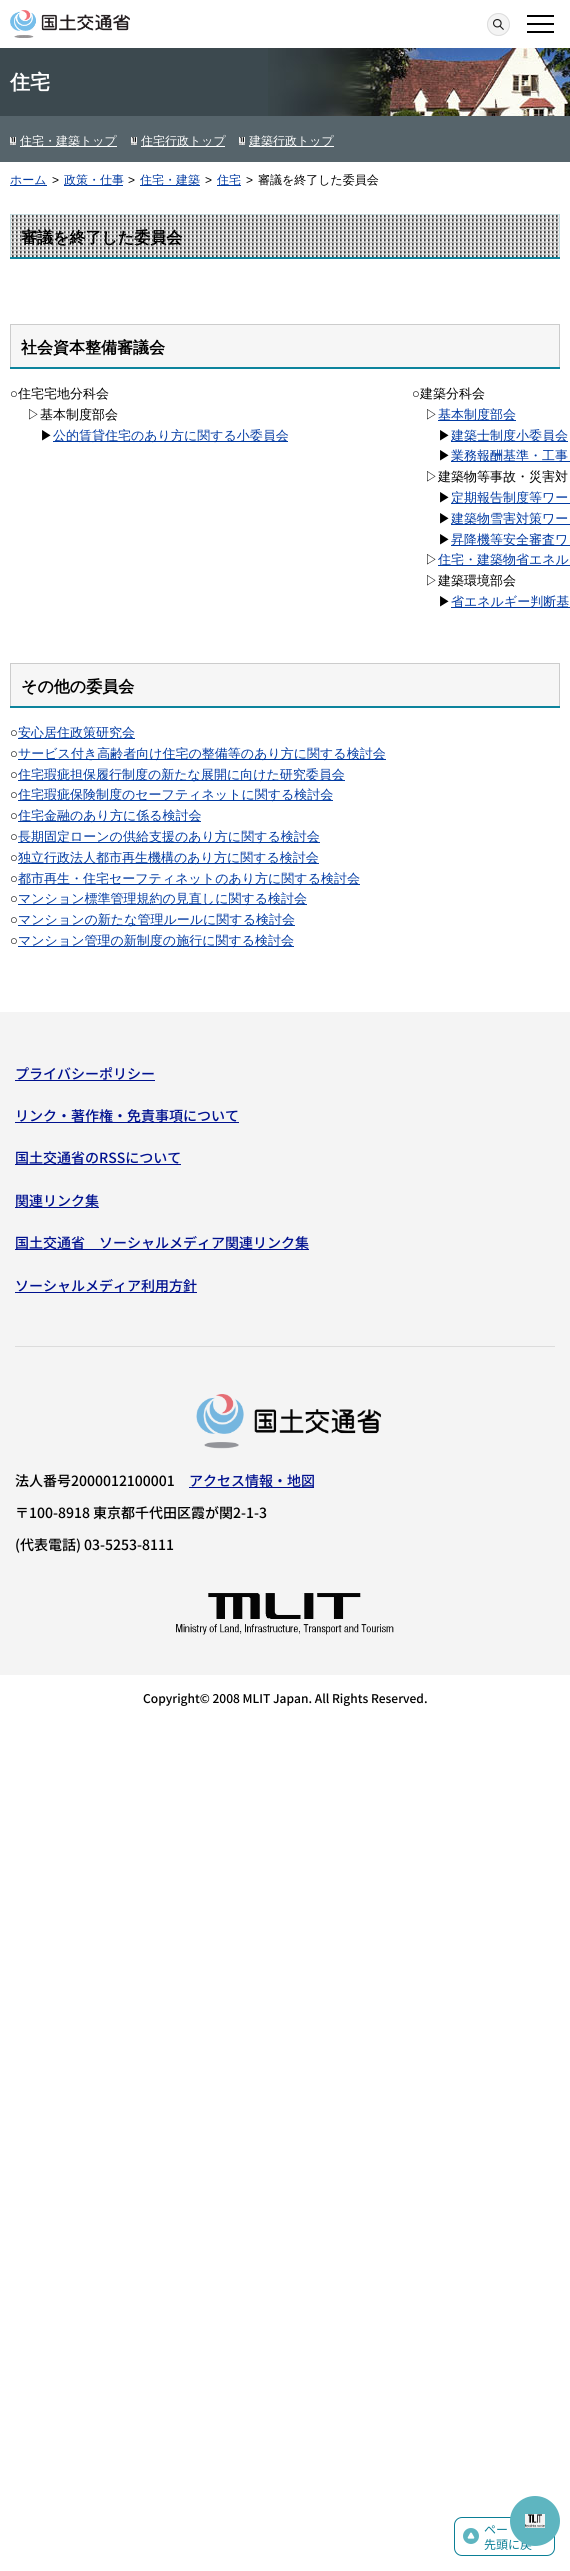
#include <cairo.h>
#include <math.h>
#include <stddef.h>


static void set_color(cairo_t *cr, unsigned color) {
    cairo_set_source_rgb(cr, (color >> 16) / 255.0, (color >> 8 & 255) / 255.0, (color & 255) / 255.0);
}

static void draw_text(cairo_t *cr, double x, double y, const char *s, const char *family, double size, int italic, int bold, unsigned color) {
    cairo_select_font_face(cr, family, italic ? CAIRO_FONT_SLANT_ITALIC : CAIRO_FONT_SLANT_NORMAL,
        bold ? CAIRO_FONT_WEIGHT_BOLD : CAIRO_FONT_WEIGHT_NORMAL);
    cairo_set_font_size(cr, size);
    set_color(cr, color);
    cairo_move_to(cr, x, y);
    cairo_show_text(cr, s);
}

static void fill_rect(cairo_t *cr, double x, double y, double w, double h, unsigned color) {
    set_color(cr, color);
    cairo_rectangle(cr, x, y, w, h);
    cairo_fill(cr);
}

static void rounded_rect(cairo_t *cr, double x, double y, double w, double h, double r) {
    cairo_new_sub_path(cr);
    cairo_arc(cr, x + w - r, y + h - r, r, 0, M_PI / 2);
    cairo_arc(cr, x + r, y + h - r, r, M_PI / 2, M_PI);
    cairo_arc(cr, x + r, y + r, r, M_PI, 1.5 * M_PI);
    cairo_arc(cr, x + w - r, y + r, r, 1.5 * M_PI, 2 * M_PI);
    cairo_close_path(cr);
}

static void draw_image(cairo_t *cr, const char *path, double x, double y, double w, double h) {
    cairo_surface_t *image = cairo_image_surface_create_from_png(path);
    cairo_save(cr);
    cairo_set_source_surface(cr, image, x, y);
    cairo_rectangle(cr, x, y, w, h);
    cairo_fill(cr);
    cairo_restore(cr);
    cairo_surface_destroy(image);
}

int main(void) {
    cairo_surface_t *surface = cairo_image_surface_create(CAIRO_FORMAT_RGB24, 570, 2571);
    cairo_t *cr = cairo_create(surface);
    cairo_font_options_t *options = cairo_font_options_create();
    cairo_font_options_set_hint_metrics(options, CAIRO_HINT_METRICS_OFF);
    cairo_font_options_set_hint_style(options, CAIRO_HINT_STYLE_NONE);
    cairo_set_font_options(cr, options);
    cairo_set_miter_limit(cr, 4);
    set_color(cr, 0xFFFFFF);
    cairo_paint(cr);
    draw_image(cr, "assets/img1.png", 10, 10, 120, 28);
    set_color(cr, 0xF4F4F4);
    cairo_arc(cr, 498.5, 24.5, 11.5, 0, 2 * M_PI);
    cairo_fill(cr);
    draw_image(cr, "assets/img2.png", 493, 19, 11, 11);
    cairo_arc(cr, 498.5, 24.5, 11, 0, 2 * M_PI);
    set_color(cr, 0xDCDCDC);
    cairo_set_line_width(cr, 1);
    cairo_stroke(cr);
    fill_rect(cr, 527, 15, 27, 2, 0x000000);
    fill_rect(cr, 527, 23, 27, 2, 0x000000);
    fill_rect(cr, 527, 31, 27, 2, 0x000000);
    fill_rect(cr, 0, 48, 268, 68, 0x3C494F);
    draw_image(cr, "assets/img3.png", 268, 48, 302, 68);
    fill_rect(cr, 0, 116, 570, 46, 0x56646B);
    draw_text(cr, 10, 89, "住宅", "WenQuanYi Zen Hei", 20, 0, 1, 0xFFFFFF);
    draw_image(cr, "assets/img4.png", 10, 137, 6, 8);
    fill_rect(cr, 20, 146, 97, 1, 0xFFFFFF);
    draw_text(cr, 20, 145, "住宅・建築トップ", "WenQuanYi Zen Hei Medium", 12, 0, 0, 0xFFFFFF);
    draw_image(cr, "assets/img4.png", 131, 137, 6, 8);
    fill_rect(cr, 141, 146, 84, 1, 0xFFFFFF);
    draw_text(cr, 141, 145, "住宅行政トップ", "WenQuanYi Zen Hei Medium", 12, 0, 0, 0xFFFFFF);
    draw_image(cr, "assets/img4.png", 239, 137, 6, 8);
    fill_rect(cr, 249, 146, 85, 1, 0xFFFFFF);
    draw_text(cr, 249, 145, "建築行政トップ", "WenQuanYi Zen Hei Medium", 12, 0, 0, 0xFFFFFF);
    fill_rect(cr, 10, 185, 37, 1, 0x013AA2);
    draw_text(cr, 10, 184, "ホーム", "WenQuanYi Zen Hei Medium", 12, 0, 0, 0x013AA2);
    draw_text(cr, 52, 184, ">", "Liberation Sans", 12, 0, 0, 0x000000);
    fill_rect(cr, 64, 185, 59, 1, 0x013AA2);
    draw_text(cr, 64, 184, "政策・仕事", "WenQuanYi Zen Hei Medium", 12, 0, 0, 0x013AA2);
    draw_text(cr, 128, 184, ">", "Liberation Sans", 12, 0, 0, 0x000000);
    fill_rect(cr, 140, 185, 60, 1, 0x013AA2);
    draw_text(cr, 140, 184, "住宅・建築", "WenQuanYi Zen Hei Medium", 12, 0, 0, 0x013AA2);
    draw_text(cr, 205, 184, ">", "Liberation Sans", 12, 0, 0, 0x000000);
    fill_rect(cr, 217, 185, 24, 1, 0x013AA2);
    draw_text(cr, 217, 184, "住宅", "WenQuanYi Zen Hei Medium", 12, 0, 0, 0x013AA2);
    draw_text(cr, 246, 184, ">", "Liberation Sans", 12, 0, 0, 0x000000);
    draw_text(cr, 258, 184, "審議を終了した委員会", "WenQuanYi Zen Hei Medium", 12, 0, 0, 0x000000);
    fill_rect(cr, 10, 257, 550, 2, 0x0D849D);
    draw_image(cr, "assets/img5.png", 11, 215, 548, 42);
    fill_rect(cr, 10, 214, 550, 1, 0xC6DCE0);
    fill_rect(cr, 559, 214, 1, 43, 0xC6DCE0);
    fill_rect(cr, 10, 214, 1, 43, 0xC6DCE0);
    draw_text(cr, 21, 243, "審議を終了した委員会", "WenQuanYi Zen Hei", 16, 0, 1, 0x000000);
    fill_rect(cr, 10, 367, 550, 2, 0x0D849D);
    fill_rect(cr, 11, 325, 548, 42, 0xF6F6F6);
    fill_rect(cr, 10, 324, 550, 1, 0xCCCCCC);
    fill_rect(cr, 559, 324, 1, 43, 0xCCCCCC);
    fill_rect(cr, 10, 324, 1, 43, 0xCCCCCC);
    draw_text(cr, 21, 353, "社会資本整備審議会", "WenQuanYi Zen Hei", 16, 0, 1, 0x000000);
    draw_text(cr, 10, 398, "○", "Liberation Sans", 13, 0, 0, 0x000000);
    draw_text(cr, 18, 398, "住宅宅地分科会", "WenQuanYi Zen Hei Medium", 13, 0, 0, 0x000000);
    draw_text(cr, 412, 398, "○", "Liberation Sans", 13, 0, 0, 0x000000);
    draw_text(cr, 420, 398, "建築分科会", "WenQuanYi Zen Hei Medium", 13, 0, 0, 0x000000);
    draw_text(cr, 27, 419, "▷基本制度部会", "WenQuanYi Zen Hei Medium", 13, 0, 0, 0x000000);
    draw_text(cr, 425, 419, "▷", "WenQuanYi Zen Hei Medium", 13, 0, 0, 0x000000);
    fill_rect(cr, 438, 420, 78, 1, 0x013AA2);
    draw_text(cr, 438, 419, "基本制度部会", "WenQuanYi Zen Hei Medium", 13, 0, 0, 0x013AA2);
    draw_text(cr, 40, 440, "▶", "WenQuanYi Zen Hei Medium", 13, 0, 0, 0x000000);
    fill_rect(cr, 53, 441, 235, 1, 0x013AA2);
    draw_text(cr, 53, 440, "公的賃貸住宅のあり方に関する小委員会", "WenQuanYi Zen Hei Medium", 13, 0, 0, 0x013AA2);
    draw_text(cr, 438, 440, "▶", "WenQuanYi Zen Hei Medium", 13, 0, 0, 0x000000);
    fill_rect(cr, 451, 441, 117, 1, 0x013AA2);
    draw_text(cr, 451, 440, "建築士制度小委員会", "WenQuanYi Zen Hei Medium", 13, 0, 0, 0x013AA2);
    draw_text(cr, 438, 460, "▶", "WenQuanYi Zen Hei Medium", 13, 0, 0, 0x000000);
    fill_rect(cr, 451, 461, 119, 1, 0x013AA2);
    draw_text(cr, 451, 460, "業務報酬基準・工事", "WenQuanYi Zen Hei Medium", 13, 0, 0, 0x013AA2);
    draw_text(cr, 425, 481, "▷建築物等事故・災害対", "WenQuanYi Zen Hei Medium", 13, 0, 0, 0x000000);
    draw_text(cr, 438, 502, "▶", "WenQuanYi Zen Hei Medium", 13, 0, 0, 0x000000);
    fill_rect(cr, 451, 503, 119, 1, 0x013AA2);
    draw_text(cr, 451, 502, "定期報告制度等ワー", "WenQuanYi Zen Hei Medium", 13, 0, 0, 0x013AA2);
    draw_text(cr, 438, 523, "▶", "WenQuanYi Zen Hei Medium", 13, 0, 0, 0x000000);
    fill_rect(cr, 451, 524, 119, 1, 0x013AA2);
    draw_text(cr, 451, 523, "建築物雪害対策ワー", "WenQuanYi Zen Hei Medium", 13, 0, 0, 0x013AA2);
    draw_text(cr, 438, 544, "▶", "WenQuanYi Zen Hei Medium", 13, 0, 0, 0x000000);
    fill_rect(cr, 451, 545, 119, 1, 0x013AA2);
    draw_text(cr, 451, 544, "昇降機等安全審査ワ", "WenQuanYi Zen Hei Medium", 13, 0, 0, 0x013AA2);
    draw_text(cr, 425, 564, "▷", "WenQuanYi Zen Hei Medium", 13, 0, 0, 0x000000);
    fill_rect(cr, 438, 565, 132, 1, 0x013AA2);
    draw_text(cr, 438, 564, "住宅・建築物省エネル", "WenQuanYi Zen Hei Medium", 13, 0, 0, 0x013AA2);
    draw_text(cr, 425, 585, "▷建築環境部会", "WenQuanYi Zen Hei Medium", 13, 0, 0, 0x000000);
    draw_text(cr, 438, 606, "▶", "WenQuanYi Zen Hei Medium", 13, 0, 0, 0x000000);
    fill_rect(cr, 451, 607, 119, 1, 0x013AA2);
    draw_text(cr, 451, 606, "省エネルギー判断基", "WenQuanYi Zen Hei Medium", 13, 0, 0, 0x013AA2);
    fill_rect(cr, 10, 706, 550, 2, 0x0D849D);
    fill_rect(cr, 11, 664, 548, 42, 0xF6F6F6);
    fill_rect(cr, 10, 663, 550, 1, 0xCCCCCC);
    fill_rect(cr, 559, 663, 1, 43, 0xCCCCCC);
    fill_rect(cr, 10, 663, 1, 43, 0xCCCCCC);
    draw_text(cr, 21, 692, "その他の委員会", "WenQuanYi Zen Hei", 16, 0, 1, 0x000000);
    draw_text(cr, 10, 737, "○", "Liberation Sans", 13, 0, 0, 0x000000);
    fill_rect(cr, 18, 738, 117, 1, 0x013AA2);
    draw_text(cr, 18, 737, "安心居住政策研究会", "WenQuanYi Zen Hei Medium", 13, 0, 0, 0x013AA2);
    draw_text(cr, 10, 758, "○", "Liberation Sans", 13, 0, 0, 0x000000);
    fill_rect(cr, 18, 759, 368, 1, 0x013AA2);
    draw_text(cr, 18, 758, "サービス付き高齢者向け住宅の整備等のあり方に関する検討会", "WenQuanYi Zen Hei Medium", 13, 0, 0, 0x013AA2);
    draw_text(cr, 10, 779, "○", "Liberation Sans", 13, 0, 0, 0x000000);
    fill_rect(cr, 18, 780, 327, 1, 0x013AA2);
    draw_text(cr, 18, 779, "住宅瑕疵担保履行制度の新たな展開に向けた研究委員会", "WenQuanYi Zen Hei Medium", 13, 0, 0, 0x013AA2);
    draw_text(cr, 10, 799, "○", "Liberation Sans", 13, 0, 0, 0x000000);
    fill_rect(cr, 18, 800, 315, 1, 0x013AA2);
    draw_text(cr, 18, 799, "住宅瑕疵保険制度のセーフティネットに関する検討会", "WenQuanYi Zen Hei Medium", 13, 0, 0, 0x013AA2);
    draw_text(cr, 10, 820, "○", "Liberation Sans", 13, 0, 0, 0x000000);
    fill_rect(cr, 18, 821, 183, 1, 0x013AA2);
    draw_text(cr, 18, 820, "住宅金融のあり方に係る検討会", "WenQuanYi Zen Hei Medium", 13, 0, 0, 0x013AA2);
    draw_text(cr, 10, 841, "○", "Liberation Sans", 13, 0, 0, 0x000000);
    fill_rect(cr, 18, 842, 302, 1, 0x013AA2);
    draw_text(cr, 18, 841, "長期固定ローンの供給支援のあり方に関する検討会", "WenQuanYi Zen Hei Medium", 13, 0, 0, 0x013AA2);
    draw_text(cr, 10, 862, "○", "Liberation Sans", 13, 0, 0, 0x000000);
    fill_rect(cr, 18, 863, 301, 1, 0x013AA2);
    draw_text(cr, 18, 862, "独立行政法人都市再生機構のあり方に関する検討会", "WenQuanYi Zen Hei Medium", 13, 0, 0, 0x013AA2);
    draw_text(cr, 10, 883, "○", "Liberation Sans", 13, 0, 0, 0x000000);
    fill_rect(cr, 18, 884, 342, 1, 0x013AA2);
    draw_text(cr, 18, 883, "都市再生・住宅セーフティネットのあり方に関する検討会", "WenQuanYi Zen Hei Medium", 13, 0, 0, 0x013AA2);
    draw_text(cr, 10, 903, "○", "Liberation Sans", 13, 0, 0, 0x000000);
    fill_rect(cr, 18, 904, 289, 1, 0x013AA2);
    draw_text(cr, 18, 903, "マンション標準管理規約の見直しに関する検討会", "WenQuanYi Zen Hei Medium", 13, 0, 0, 0x013AA2);
    draw_text(cr, 10, 924, "○", "Liberation Sans", 13, 0, 0, 0x000000);
    fill_rect(cr, 18, 925, 277, 1, 0x013AA2);
    draw_text(cr, 18, 924, "マンションの新たな管理ルールに関する検討会", "WenQuanYi Zen Hei Medium", 13, 0, 0, 0x013AA2);
    draw_text(cr, 10, 945, "○", "Liberation Sans", 13, 0, 0, 0x000000);
    fill_rect(cr, 18, 946, 276, 1, 0x013AA2);
    draw_text(cr, 18, 945, "マンション管理の新制度の施行に関する検討会", "WenQuanYi Zen Hei Medium", 13, 0, 0, 0x013AA2);
    draw_image(cr, "assets/img9.png", 463, 2528, 16, 16);
    rounded_rect(cr, 454.5, 2517.5, 100, 38, 7.5);
    set_color(cr, 0x0B7F96);
    cairo_stroke(cr);
    draw_text(cr, 484, 2549, "先頭に戻", "Noto Sans JP", 12, 0, 0, 0x0B7F96);
    set_color(cr, 0x5EB5C0);
    cairo_new_path(cr);
    cairo_arc(cr, 535, 2521, 25, 0, 2 * M_PI);
    cairo_fill(cr);
    draw_image(cr, "assets/img6.png", 525, 2514, 20, 14);
    fill_rect(cr, 0, 1012, 570, 663, 0xF4F4F4);
    fill_rect(cr, 15, 1346, 540, 1, 0xDCDCDC);
    draw_text(cr, 15, 1079, "プライバシーポリシー", "Noto Sans JP Medium", 14, 0, 0, 0x00118F);
    fill_rect(cr, 15, 1080, 140, 1, 0x00118F);
    fill_rect(cr, 15, 1122, 224, 1, 0x00118F);
    draw_text(cr, 15, 1121, "リンク・著作権・免責事項について", "Noto Sans JP Medium", 14, 0, 0, 0x00118F);
    fill_rect(cr, 15, 1164, 166, 1, 0x00118F);
    draw_text(cr, 15, 1163, "国土交通省のRSSについて", "Noto Sans JP Medium", 14, 0, 0, 0x00118F);
    fill_rect(cr, 15, 1207, 84, 1, 0x00118F);
    draw_text(cr, 15, 1206, "関連リンク集", "Noto Sans JP Medium", 14, 0, 0, 0x00118F);
    fill_rect(cr, 15, 1249, 294, 1, 0x00118F);
    draw_text(cr, 15, 1248, "国土交通省　ソーシャルメディア関連リンク集", "Noto Sans JP Medium", 14, 0, 0, 0x00118F);
    fill_rect(cr, 15, 1292, 182, 1, 0x00118F);
    draw_text(cr, 15, 1291, "ソーシャルメディア利用方針", "Noto Sans JP Medium", 14, 0, 0, 0x00118F);
    draw_image(cr, "assets/img7.png", 196, 1394, 186, 55);
    draw_text(cr, 15, 1486, "法人番号2000012100001", "Noto Sans JP Medium", 14, 0, 0, 0x000000);
    fill_rect(cr, 189, 1487, 125, 1, 0x00118F);
    draw_text(cr, 189, 1486, "アクセス情報・地図", "Noto Sans JP Medium", 14, 0, 0, 0x00118F);
    draw_text(cr, 15, 1518, "〒100-8918 東京都千代田区霞が関2-1-3", "Noto Sans JP Medium", 14, 0, 0, 0x000000);
    draw_text(cr, 15, 1550, "(代表電話) 03-5253-8111", "Noto Sans JP Medium", 14, 0, 0, 0x000000);
    draw_image(cr, "assets/img8.png", 176, 1593, 218, 42);
    draw_text(cr, 143, 1703, "Copyright© 2008 MLIT Japan. All Rights Reserved.", "Noto Sans JP Medium", 12, 0, 0, 0x000000);
    draw_text(cr, 484, 2534, "ペー", "Noto Sans JP", 12, 0, 0, 0x0B7F96);
    cairo_surface_write_to_png(surface, "output.png");
    cairo_font_options_destroy(options);
    cairo_destroy(cr);
    cairo_surface_destroy(surface);
    return 0;
}
